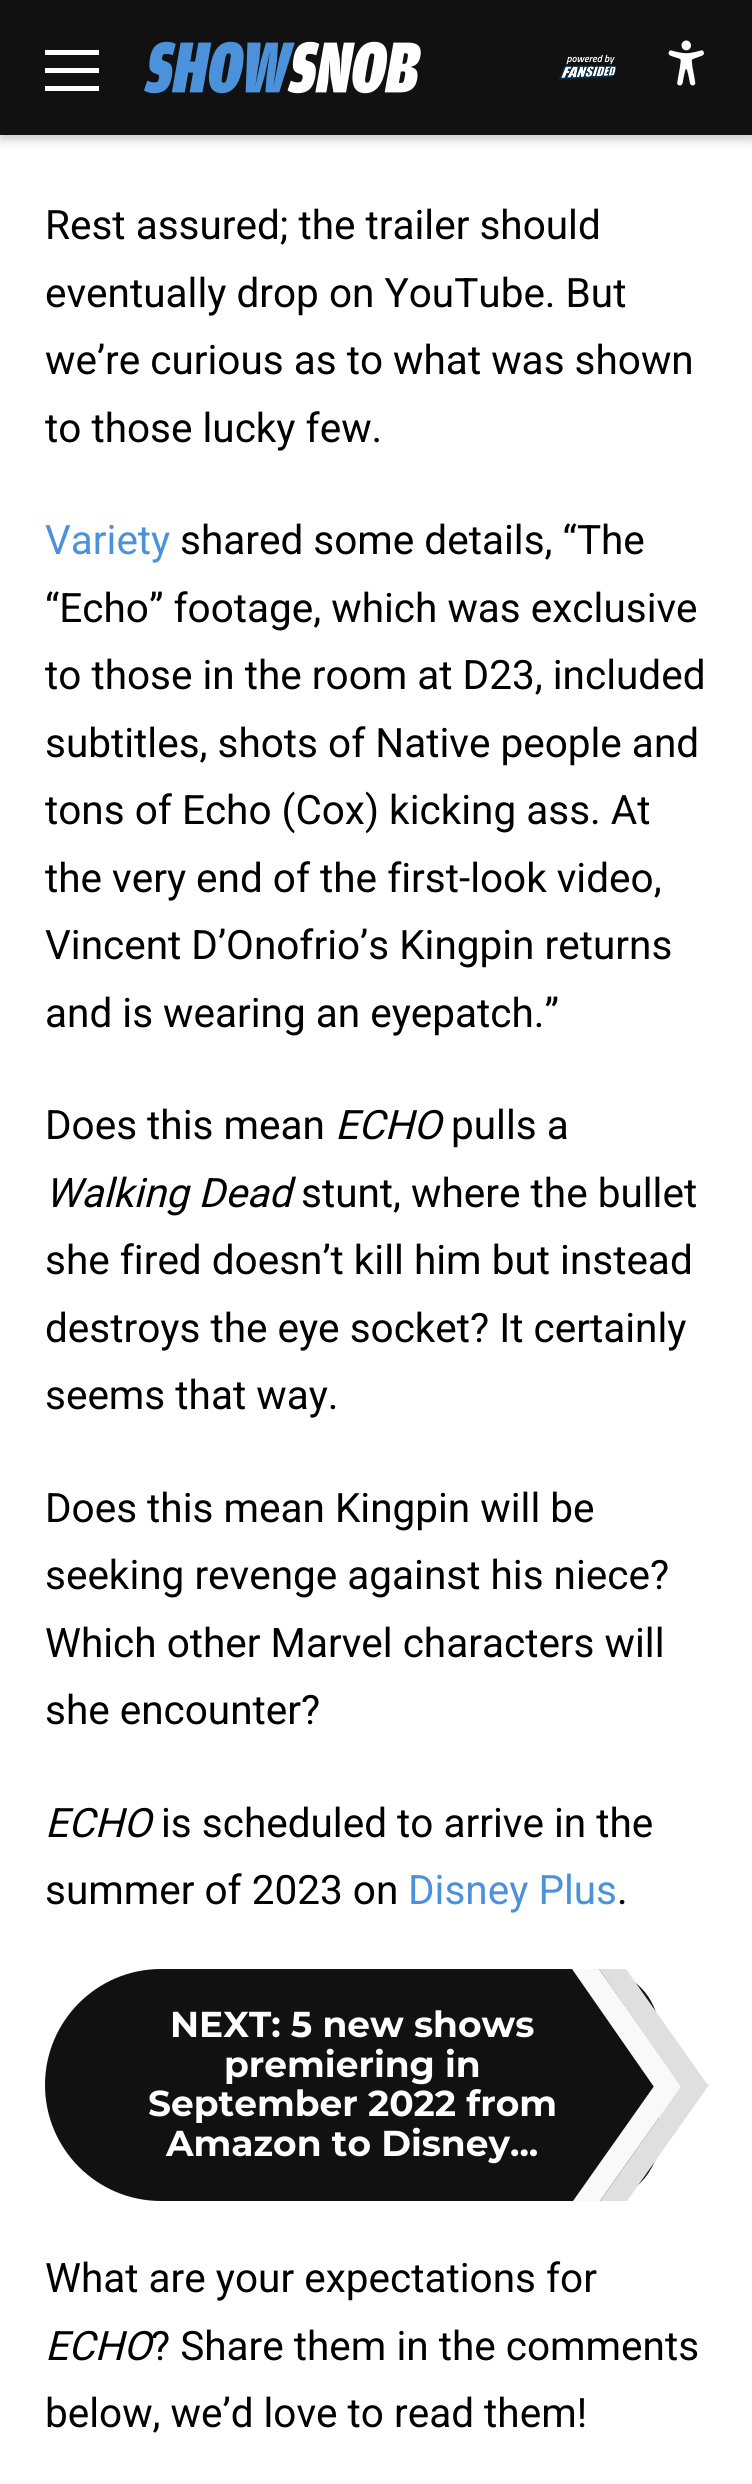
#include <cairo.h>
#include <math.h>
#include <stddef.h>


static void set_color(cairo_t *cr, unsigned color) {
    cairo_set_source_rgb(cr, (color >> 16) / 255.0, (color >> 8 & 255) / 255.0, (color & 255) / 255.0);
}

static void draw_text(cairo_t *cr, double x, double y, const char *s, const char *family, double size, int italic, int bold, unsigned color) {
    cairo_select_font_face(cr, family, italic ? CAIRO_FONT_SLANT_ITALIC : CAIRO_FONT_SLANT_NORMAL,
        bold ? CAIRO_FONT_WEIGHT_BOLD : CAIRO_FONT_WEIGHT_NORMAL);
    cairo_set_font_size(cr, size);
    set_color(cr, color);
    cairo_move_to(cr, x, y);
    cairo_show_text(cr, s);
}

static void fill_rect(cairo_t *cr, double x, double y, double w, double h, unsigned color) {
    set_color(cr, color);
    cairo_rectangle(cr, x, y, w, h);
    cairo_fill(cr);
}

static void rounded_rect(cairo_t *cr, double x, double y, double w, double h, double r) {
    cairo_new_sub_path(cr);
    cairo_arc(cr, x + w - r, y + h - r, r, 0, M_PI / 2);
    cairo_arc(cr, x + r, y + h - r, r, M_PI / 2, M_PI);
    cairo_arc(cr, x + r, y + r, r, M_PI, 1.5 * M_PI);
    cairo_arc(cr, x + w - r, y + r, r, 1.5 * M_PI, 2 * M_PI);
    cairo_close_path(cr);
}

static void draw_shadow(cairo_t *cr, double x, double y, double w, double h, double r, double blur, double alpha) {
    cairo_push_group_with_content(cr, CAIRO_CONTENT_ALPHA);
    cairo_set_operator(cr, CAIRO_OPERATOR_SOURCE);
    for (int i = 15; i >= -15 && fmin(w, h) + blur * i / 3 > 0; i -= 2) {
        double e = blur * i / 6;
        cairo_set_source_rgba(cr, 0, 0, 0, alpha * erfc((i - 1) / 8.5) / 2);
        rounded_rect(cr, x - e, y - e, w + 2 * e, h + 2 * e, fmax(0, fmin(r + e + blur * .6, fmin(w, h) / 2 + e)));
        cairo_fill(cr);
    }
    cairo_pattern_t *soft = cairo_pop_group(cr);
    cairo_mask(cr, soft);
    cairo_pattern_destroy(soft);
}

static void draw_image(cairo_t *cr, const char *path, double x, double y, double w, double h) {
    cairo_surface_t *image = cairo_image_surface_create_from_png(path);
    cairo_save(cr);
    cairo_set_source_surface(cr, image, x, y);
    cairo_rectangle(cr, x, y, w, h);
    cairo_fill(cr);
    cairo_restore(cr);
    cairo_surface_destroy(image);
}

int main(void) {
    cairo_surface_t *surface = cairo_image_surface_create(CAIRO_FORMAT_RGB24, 752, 2484);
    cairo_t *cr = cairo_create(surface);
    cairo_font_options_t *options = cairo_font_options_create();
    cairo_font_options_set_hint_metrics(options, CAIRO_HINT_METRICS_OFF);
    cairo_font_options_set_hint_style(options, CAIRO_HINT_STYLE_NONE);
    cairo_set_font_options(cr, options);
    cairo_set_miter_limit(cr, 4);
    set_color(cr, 0xFFFFFF);
    cairo_paint(cr);
    set_color(cr, 0x000000);
    draw_shadow(cr, 0, 5, 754, 135, 0, 4.5, 0.2);
    fill_rect(cr, 0, 0, 752, 135, 0x111111);
    fill_rect(cr, 45, 50, 54, 5, 0xFFFFFF);
    fill_rect(cr, 45, 68, 54, 5, 0xFFFFFF);
    fill_rect(cr, 45, 86, 54, 5, 0xFFFFFF);
    draw_image(cr, "assets/img1.png", 144, 41, 277, 53);
    draw_image(cr, "assets/img2.png", 559, 54, 58, 26);
    draw_image(cr, "assets/img3.png", 668, 40, 36, 46);
    draw_text(cr, 45, 239, "Rest assured; the trailer should", "Roboto", 40.5, 0, 0, 0x000000);
    draw_text(cr, 45, 307, "eventually drop on YouTube. But", "Roboto", 40.5, 0, 0, 0x000000);
    draw_text(cr, 45, 374, "we’re curious as to what was shown", "Roboto", 40.5, 0, 0, 0x000000);
    draw_text(cr, 45, 442, "to those lucky few.", "Roboto", 40.5, 0, 0, 0x000000);
    draw_text(cr, 45, 554, "Variety", "Roboto", 40.5, 0, 0, 0x4B92DB);
    draw_text(cr, 180, 554, "shared some details, “The", "Roboto", 40.5, 0, 0, 0x000000);
    draw_text(cr, 45, 622, "“Echo” footage, which was exclusive", "Roboto", 40.5, 0, 0, 0x000000);
    draw_text(cr, 45, 689, "to those in the room at D23, included", "Roboto", 40.5, 0, 0, 0x000000);
    draw_text(cr, 45, 757, "subtitles, shots of Native people and", "Roboto", 40.5, 0, 0, 0x000000);
    draw_text(cr, 45, 824, "tons of Echo (Cox) kicking ass. At", "Roboto", 40.5, 0, 0, 0x000000);
    draw_text(cr, 45, 892, "the very end of the first-look video,", "Roboto", 40.5, 0, 0, 0x000000);
    draw_text(cr, 45, 959, "Vincent D’Onofrio’s Kingpin returns", "Roboto", 40.5, 0, 0, 0x000000);
    draw_text(cr, 45, 1027, "and is wearing an eyepatch.”", "Roboto", 40.5, 0, 0, 0x000000);
    draw_text(cr, 45, 1139, "Does this mean", "Roboto", 40.5, 0, 0, 0x000000);
    draw_text(cr, 335, 1139, "ECHO", "Roboto", 40.5, 1, 0, 0x000000);
    draw_text(cr, 451, 1139, "pulls a", "Roboto", 40.5, 0, 0, 0x000000);
    draw_text(cr, 45, 1207, "Walking Dead", "Roboto", 40.5, 1, 0, 0x000000);
    draw_text(cr, 301, 1207, "stunt, where the bullet", "Roboto", 40.5, 0, 0, 0x000000);
    draw_text(cr, 45, 1274, "she fired doesn’t kill him but instead", "Roboto", 40.5, 0, 0, 0x000000);
    draw_text(cr, 45, 1342, "destroys the eye socket? It certainly", "Roboto", 40.5, 0, 0, 0x000000);
    draw_text(cr, 45, 1409, "seems that way.", "Roboto", 40.5, 0, 0, 0x000000);
    draw_text(cr, 45, 1522, "Does this mean Kingpin will be", "Roboto", 40.5, 0, 0, 0x000000);
    draw_text(cr, 45, 1589, "seeking revenge against his niece?", "Roboto", 40.5, 0, 0, 0x000000);
    draw_text(cr, 45, 1657, "Which other Marvel characters will", "Roboto", 40.5, 0, 0, 0x000000);
    draw_text(cr, 45, 1724, "she encounter?", "Roboto", 40.5, 0, 0, 0x000000);
    draw_text(cr, 45, 1837, "ECHO", "Roboto", 40.5, 1, 0, 0x000000);
    draw_text(cr, 161, 1837, "is scheduled to arrive in the", "Roboto", 40.5, 0, 0, 0x000000);
    draw_text(cr, 45, 1904, "summer of 2023 on", "Roboto", 40.5, 0, 0, 0x000000);
    draw_text(cr, 408, 1904, "Disney Plus", "Roboto", 40.5, 0, 0, 0x4B92DB);
    draw_text(cr, 617, 1904, ".", "Roboto", 40.5, 0, 0, 0x000000);
    set_color(cr, 0x111111);
    cairo_new_path(cr);
    cairo_move_to(cr, 161, 1969);
    cairo_line_to(cr, 596, 1969);
    cairo_curve_to(cr, 631, 1969, 659, 1997, 659, 2032);
    cairo_line_to(cr, 659, 2138);
    cairo_curve_to(cr, 659, 2173, 631, 2201, 596, 2201);
    cairo_line_to(cr, 161, 2201);
    cairo_curve_to(cr, 97, 2201, 45, 2149, 45, 2085);
    cairo_curve_to(cr, 45, 2021, 97, 1969, 161, 1969);
    cairo_close_path(cr);
    cairo_fill(cr);
    draw_text(cr, 170, 2037, "NEXT: 5 new shows", "Montserrat Thin", 36, 0, 0, 0xFFFFFF);
    draw_text(cr, 224, 2077, "premiering in", "Montserrat Thin", 36, 0, 0, 0xFFFFFF);
    draw_text(cr, 148, 2116, "September 2022 from", "Montserrat Thin", 36, 0, 0, 0xFFFFFF);
    draw_text(cr, 166, 2156, "Amazon to Disney...", "Montserrat Thin", 36, 0, 0, 0xFFFFFF);
    set_color(cr, 0xF9F9F9);
    cairo_new_path(cr);
    cairo_move_to(cr, 599, 1969);
    cairo_line_to(cr, 680, 2084);
    cairo_line_to(cr, 661, 2097);
    cairo_line_to(cr, 572, 1969);
    cairo_close_path(cr);
    cairo_fill(cr);
    cairo_new_path(cr);
    cairo_move_to(cr, 664, 2072);
    cairo_line_to(cr, 682, 2085);
    cairo_line_to(cr, 600, 2201);
    cairo_line_to(cr, 573, 2201);
    cairo_close_path(cr);
    cairo_fill(cr);
    set_color(cr, 0xDFDFDF);
    cairo_new_path(cr);
    cairo_move_to(cr, 626, 1969);
    cairo_line_to(cr, 707, 2084);
    cairo_line_to(cr, 688, 2097);
    cairo_line_to(cr, 599, 1969);
    cairo_close_path(cr);
    cairo_fill(cr);
    cairo_new_path(cr);
    cairo_move_to(cr, 691, 2072);
    cairo_line_to(cr, 709, 2085);
    cairo_line_to(cr, 627, 2201);
    cairo_line_to(cr, 600, 2201);
    cairo_close_path(cr);
    cairo_fill(cr);
    draw_text(cr, 45, 2292, "What are your expectations for", "Roboto", 40.5, 0, 0, 0x000000);
    draw_text(cr, 45, 2360, "ECHO", "Roboto", 40.5, 1, 0, 0x000000);
    draw_text(cr, 151, 2360, "? Share them in the comments", "Roboto", 40.5, 0, 0, 0x000000);
    draw_text(cr, 45, 2427, "below, we’d love to read them!", "Roboto", 40.5, 0, 0, 0x000000);
    cairo_surface_write_to_png(surface, "output.png");
    cairo_font_options_destroy(options);
    cairo_destroy(cr);
    cairo_surface_destroy(surface);
    return 0;
}
